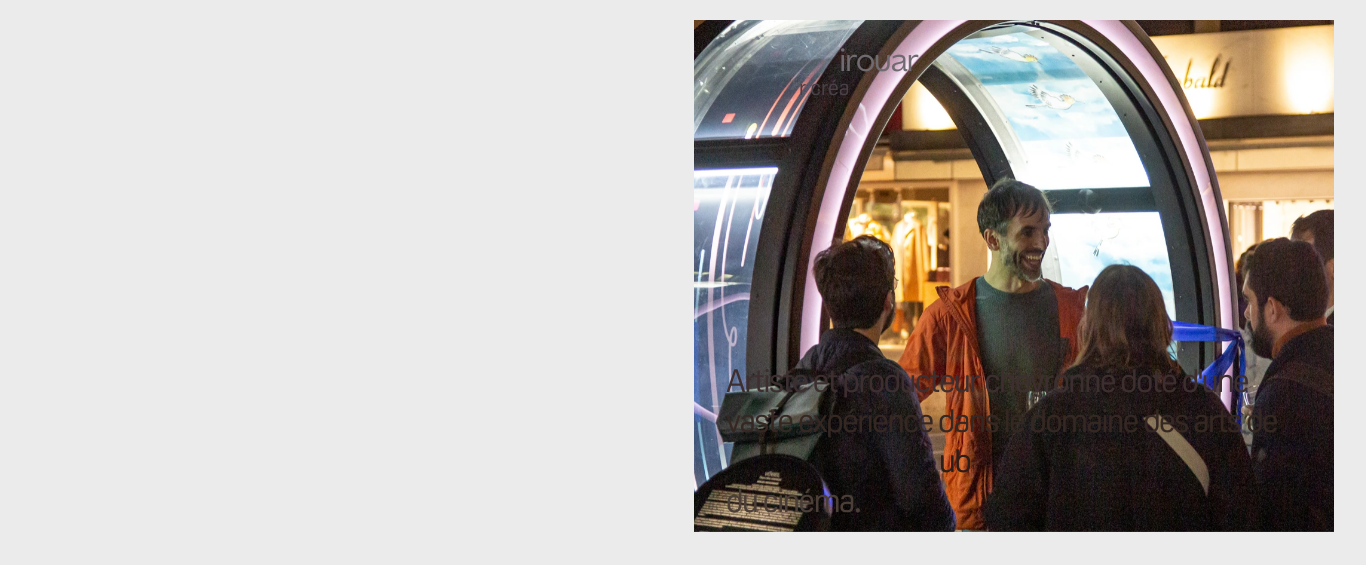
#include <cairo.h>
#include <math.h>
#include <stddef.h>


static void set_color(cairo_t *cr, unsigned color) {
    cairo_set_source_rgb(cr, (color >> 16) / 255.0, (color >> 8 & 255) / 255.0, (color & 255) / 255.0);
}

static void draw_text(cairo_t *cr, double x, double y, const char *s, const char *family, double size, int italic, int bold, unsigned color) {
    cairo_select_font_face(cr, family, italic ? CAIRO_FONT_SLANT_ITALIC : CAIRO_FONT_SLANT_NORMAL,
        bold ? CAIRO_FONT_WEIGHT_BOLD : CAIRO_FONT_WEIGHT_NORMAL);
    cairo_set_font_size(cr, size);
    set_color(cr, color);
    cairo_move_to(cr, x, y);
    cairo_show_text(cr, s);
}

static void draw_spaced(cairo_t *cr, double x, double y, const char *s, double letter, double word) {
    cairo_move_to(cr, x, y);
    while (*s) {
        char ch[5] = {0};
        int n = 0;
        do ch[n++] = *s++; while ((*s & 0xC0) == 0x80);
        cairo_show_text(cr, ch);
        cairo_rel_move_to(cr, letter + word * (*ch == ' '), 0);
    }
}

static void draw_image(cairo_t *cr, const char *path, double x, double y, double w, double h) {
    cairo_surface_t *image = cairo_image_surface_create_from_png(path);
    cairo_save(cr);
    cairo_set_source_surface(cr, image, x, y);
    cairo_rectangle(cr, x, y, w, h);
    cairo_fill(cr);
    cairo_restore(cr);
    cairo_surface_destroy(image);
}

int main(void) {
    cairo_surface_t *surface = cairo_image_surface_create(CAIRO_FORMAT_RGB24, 1366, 565);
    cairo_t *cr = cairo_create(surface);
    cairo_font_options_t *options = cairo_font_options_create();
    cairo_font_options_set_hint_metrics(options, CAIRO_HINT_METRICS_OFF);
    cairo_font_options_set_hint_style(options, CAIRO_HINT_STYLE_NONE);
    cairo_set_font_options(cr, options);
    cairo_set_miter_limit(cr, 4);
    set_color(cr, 0xEBEBEB);
    cairo_paint(cr);
    draw_image(cr, "assets/img1.png", 694, 20, 640, 512);
    cairo_select_font_face(cr, "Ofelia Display", CAIRO_FONT_SLANT_NORMAL, CAIRO_FONT_WEIGHT_NORMAL);
    cairo_set_font_size(cr, 32);
    set_color(cr, 0x706B71);
    draw_spaced(cr, 839, 71, "irouar", -1.35, 0);
    draw_text(cr, 799, 95, "r créa", "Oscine", 21, 0, 0, 0x484147);
    cairo_set_font_size(cr, 32);
    set_color(cr, 0x3D2F30);
    draw_spaced(cr, 726, 392, "Artiste et producteur chevronné doté d'une", -1.35, 0);
    set_color(cr, 0x352823);
    draw_spaced(cr, 726, 432, "vaste expérience dans le domaine des arts de", -1.35, 0);
    set_color(cr, 0x2A1D1A);
    draw_spaced(cr, 939, 472, "ub", -1.35, 0);
    set_color(cr, 0x4A3E37);
    draw_spaced(cr, 726, 512, "du cinéma.", -1.35, 0);
    cairo_surface_write_to_png(surface, "output.png");
    cairo_font_options_destroy(options);
    cairo_destroy(cr);
    cairo_surface_destroy(surface);
    return 0;
}
